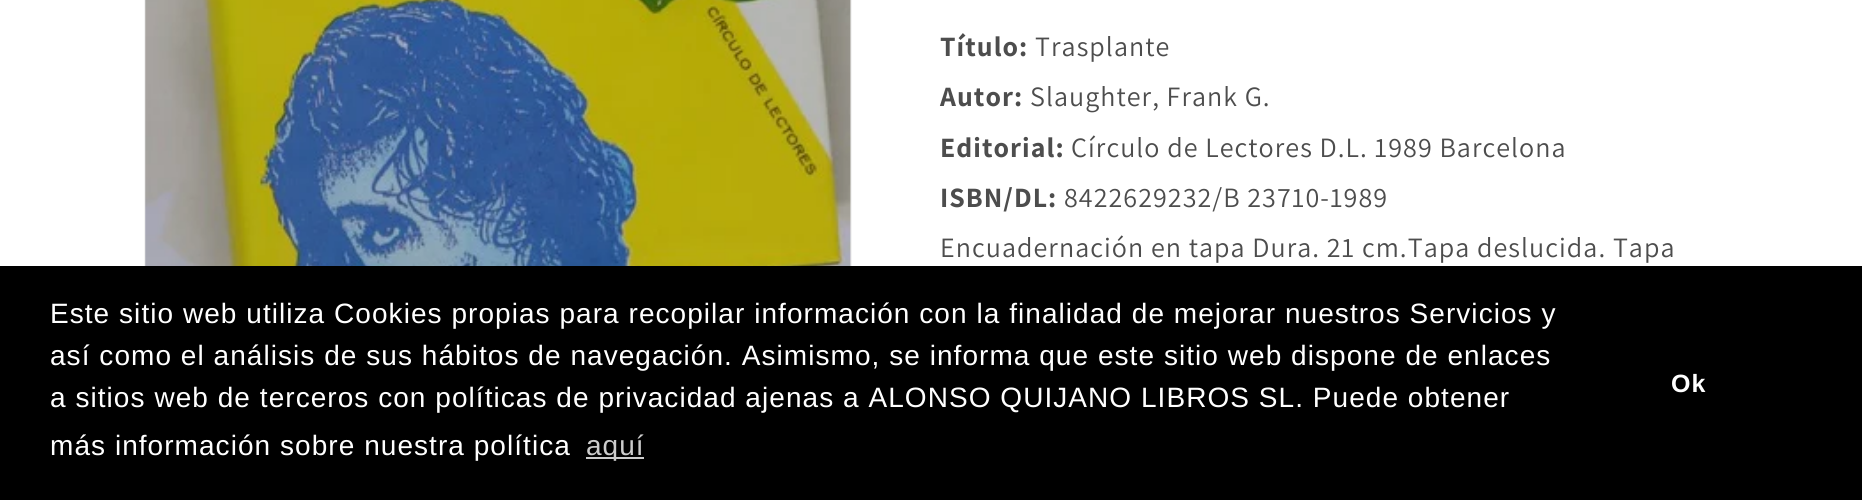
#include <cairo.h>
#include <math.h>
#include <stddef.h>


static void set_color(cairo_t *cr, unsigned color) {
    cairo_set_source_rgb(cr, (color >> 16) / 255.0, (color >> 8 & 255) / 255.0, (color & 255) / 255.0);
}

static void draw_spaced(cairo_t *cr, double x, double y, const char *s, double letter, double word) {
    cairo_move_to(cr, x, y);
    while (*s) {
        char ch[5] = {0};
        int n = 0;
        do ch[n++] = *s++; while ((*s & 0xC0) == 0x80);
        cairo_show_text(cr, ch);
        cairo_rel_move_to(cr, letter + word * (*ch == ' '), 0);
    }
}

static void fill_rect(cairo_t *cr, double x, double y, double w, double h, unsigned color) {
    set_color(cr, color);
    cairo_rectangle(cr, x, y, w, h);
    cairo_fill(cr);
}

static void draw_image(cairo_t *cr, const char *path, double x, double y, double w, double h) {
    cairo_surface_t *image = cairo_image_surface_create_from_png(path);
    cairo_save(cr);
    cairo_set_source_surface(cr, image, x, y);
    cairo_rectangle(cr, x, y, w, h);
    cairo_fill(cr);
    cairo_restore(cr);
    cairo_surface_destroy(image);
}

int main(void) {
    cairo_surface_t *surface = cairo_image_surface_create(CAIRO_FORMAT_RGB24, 1862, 500);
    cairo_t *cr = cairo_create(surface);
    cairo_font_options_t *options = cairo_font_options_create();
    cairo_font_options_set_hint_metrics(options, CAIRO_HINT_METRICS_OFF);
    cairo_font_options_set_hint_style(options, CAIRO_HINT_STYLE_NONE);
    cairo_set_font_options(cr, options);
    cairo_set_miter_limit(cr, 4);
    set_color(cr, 0xFFFFFF);
    cairo_paint(cr);
    cairo_rectangle(cr, 145, -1, 706, 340);
    set_color(cr, 0xF3F3F3);
    cairo_stroke(cr);
    draw_image(cr, "assets/img1.png", 145, 0, 706, 266);
    cairo_select_font_face(cr, "Assistant", CAIRO_FONT_SLANT_NORMAL, CAIRO_FONT_WEIGHT_BOLD);
    cairo_set_font_size(cr, 28);
    set_color(cr, 0x4D4D4D);
    draw_spaced(cr, 940, 56, "Título:", 1.05, 0);
    cairo_select_font_face(cr, "Assistant", CAIRO_FONT_SLANT_NORMAL, CAIRO_FONT_WEIGHT_NORMAL);
    draw_spaced(cr, 1035, 56, "Trasplante", 1.05, 0);
    cairo_select_font_face(cr, "Assistant", CAIRO_FONT_SLANT_NORMAL, CAIRO_FONT_WEIGHT_BOLD);
    draw_spaced(cr, 940, 106, "Autor:", 1.05, 0);
    cairo_select_font_face(cr, "Assistant", CAIRO_FONT_SLANT_NORMAL, CAIRO_FONT_WEIGHT_NORMAL);
    draw_spaced(cr, 1030, 106, "Slaughter, Frank G.", 1.05, 0);
    cairo_select_font_face(cr, "Assistant", CAIRO_FONT_SLANT_NORMAL, CAIRO_FONT_WEIGHT_BOLD);
    draw_spaced(cr, 940, 157, "Editorial:", 1.05, 0);
    cairo_select_font_face(cr, "Assistant", CAIRO_FONT_SLANT_NORMAL, CAIRO_FONT_WEIGHT_NORMAL);
    draw_spaced(cr, 1071, 157, "Círculo de Lectores D.L. 1989 Barcelona", 1.05, 0);
    cairo_select_font_face(cr, "Assistant", CAIRO_FONT_SLANT_NORMAL, CAIRO_FONT_WEIGHT_BOLD);
    draw_spaced(cr, 940, 207, "ISBN/DL:", 1.05, 0);
    cairo_select_font_face(cr, "Assistant", CAIRO_FONT_SLANT_NORMAL, CAIRO_FONT_WEIGHT_NORMAL);
    draw_spaced(cr, 1064, 207, "8422629232/B 23710-1989", 1.05, 0);
    draw_spaced(cr, 940, 257, "Encuadernación en tapa Dura. 21 cm.Tapa deslucida. Tapa", 1.05, 0);
    fill_rect(cr, 0, 266, 1862, 234, 0x000000);
    cairo_select_font_face(cr, "Liberation Sans", CAIRO_FONT_SLANT_NORMAL, CAIRO_FONT_WEIGHT_NORMAL);
    set_color(cr, 0xFFFFFF);
    draw_spaced(cr, 50, 323, "Este sitio web utiliza Cookies propias para recopilar información con la finalidad de mejorar nuestros Servicios y", 1.05, 0);
    draw_spaced(cr, 50, 365, "así como el análisis de sus hábitos de navegación. Asimismo, se informa que este sitio web dispone de enlaces", 1.05, 0);
    draw_spaced(cr, 50, 407, "a sitios web de terceros con políticas de privacidad ajenas a ALONSO QUIJANO LIBROS SL. Puede obtener", 1.05, 0);
    draw_spaced(cr, 50, 455, "más información sobre nuestra política", 1.05, 0);
    fill_rect(cr, 586, 457, 58, 2, 0xCCCCCC);
    draw_spaced(cr, 586, 455, "aquí", 1.05, 0);
    cairo_select_font_face(cr, "Liberation Sans", CAIRO_FONT_SLANT_NORMAL, CAIRO_FONT_WEIGHT_BOLD);
    cairo_set_font_size(cr, 25);
    set_color(cr, 0xFFFFFF);
    draw_spaced(cr, 1671, 392, "Ok", 1.05, 0);
    cairo_surface_write_to_png(surface, "output.png");
    cairo_font_options_destroy(options);
    cairo_destroy(cr);
    cairo_surface_destroy(surface);
    return 0;
}
